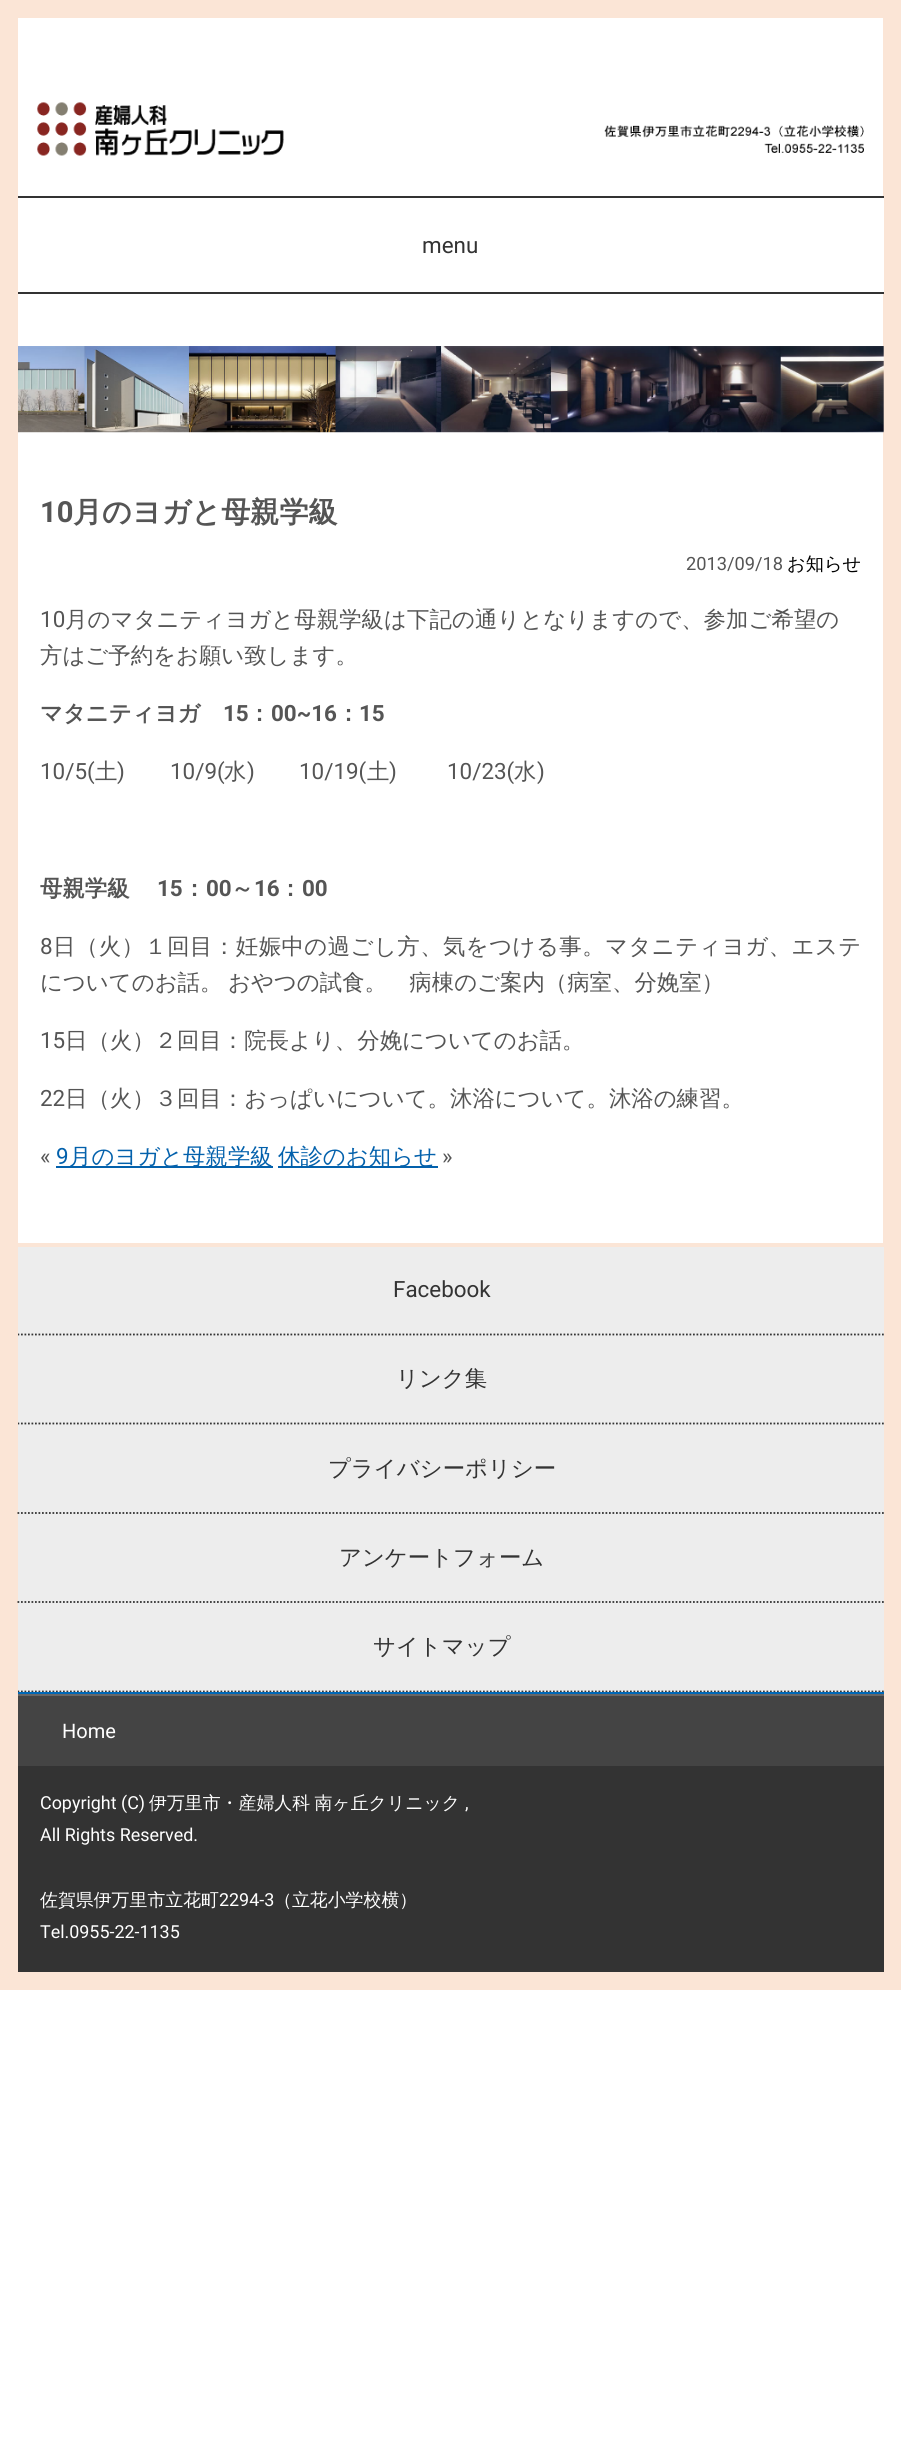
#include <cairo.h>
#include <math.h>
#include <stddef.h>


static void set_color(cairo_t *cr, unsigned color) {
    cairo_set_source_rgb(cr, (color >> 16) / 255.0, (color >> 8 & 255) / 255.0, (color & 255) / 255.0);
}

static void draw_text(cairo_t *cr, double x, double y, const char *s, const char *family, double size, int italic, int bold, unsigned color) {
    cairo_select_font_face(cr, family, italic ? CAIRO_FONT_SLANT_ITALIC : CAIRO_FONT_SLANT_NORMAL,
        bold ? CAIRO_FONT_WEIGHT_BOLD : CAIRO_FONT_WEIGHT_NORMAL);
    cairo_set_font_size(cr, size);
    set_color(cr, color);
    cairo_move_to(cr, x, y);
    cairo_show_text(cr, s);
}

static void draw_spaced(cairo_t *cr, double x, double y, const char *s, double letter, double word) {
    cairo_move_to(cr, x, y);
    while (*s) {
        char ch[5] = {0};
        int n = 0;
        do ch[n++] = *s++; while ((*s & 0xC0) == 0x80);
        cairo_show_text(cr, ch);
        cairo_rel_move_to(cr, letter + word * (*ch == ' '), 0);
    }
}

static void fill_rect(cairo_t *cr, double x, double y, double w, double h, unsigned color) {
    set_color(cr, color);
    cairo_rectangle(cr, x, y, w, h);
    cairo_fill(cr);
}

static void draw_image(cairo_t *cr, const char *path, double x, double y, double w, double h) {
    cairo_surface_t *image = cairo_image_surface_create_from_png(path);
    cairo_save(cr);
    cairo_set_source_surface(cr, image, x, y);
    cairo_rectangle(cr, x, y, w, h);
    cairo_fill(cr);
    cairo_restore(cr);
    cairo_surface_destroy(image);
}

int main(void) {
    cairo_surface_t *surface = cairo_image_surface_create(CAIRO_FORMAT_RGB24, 901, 2444);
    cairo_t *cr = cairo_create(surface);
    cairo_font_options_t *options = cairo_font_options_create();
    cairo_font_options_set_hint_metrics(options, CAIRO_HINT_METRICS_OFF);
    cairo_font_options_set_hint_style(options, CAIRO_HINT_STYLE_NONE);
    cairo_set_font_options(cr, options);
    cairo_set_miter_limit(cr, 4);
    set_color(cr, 0xFFFFFF);
    cairo_paint(cr);
    cairo_rectangle(cr, 9, 9, 883, 1972);
    set_color(cr, 0xFBE5D6);
    cairo_set_line_width(cr, 18);
    cairo_stroke(cr);
    draw_image(cr, "assets/img1.png", 37, 102, 827, 54);
    fill_rect(cr, 883, 198, 1, 94, 0xFFFFFF);
    fill_rect(cr, 18, 196, 866, 2, 0x333333);
    fill_rect(cr, 18, 292, 866, 2, 0x333333);
    draw_text(cr, 422, 253, "menu", "Roboto", 22.4, 0, 0, 0x333333);
    draw_image(cr, "assets/img2.png", 18, 346, 866, 87);
    draw_text(cr, 40, 522, "10", "Roboto", 29.1, 0, 1, 0x555555);
    draw_text(cr, 73, 522, "月のヨガと母親学級", "WenQuanYi Zen Hei", 29.1, 0, 1, 0x555555);
    draw_text(cr, 686, 570, "2013/09/18", "Roboto", 18.25, 0, 0, 0x555555);
    draw_text(cr, 787, 570, "お知らせ", "WenQuanYi Zen Hei Medium", 18.25, 0, 0, 0x000000);
    cairo_select_font_face(cr, "Roboto", CAIRO_FONT_SLANT_NORMAL, CAIRO_FONT_WEIGHT_NORMAL);
    cairo_set_font_size(cr, 22.4);
    set_color(cr, 0x555555);
    draw_spaced(cr, 40, 627, "10", 0.05, 0);
    cairo_select_font_face(cr, "WenQuanYi Zen Hei Medium", CAIRO_FONT_SLANT_NORMAL, CAIRO_FONT_WEIGHT_NORMAL);
    draw_spaced(cr, 65, 627, "月のマタニティヨガと母親学級は下記の通りとなりますので、参加ご希望の", 0.05, 0);
    draw_text(cr, 40, 663, "方はご予約をお願い致します。", "WenQuanYi Zen Hei Medium", 22.4, 0, 0, 0x555555);
    draw_text(cr, 40, 721, "マタニティヨガ", "WenQuanYi Zen Hei", 22.4, 0, 1, 0x555555);
    draw_text(cr, 223, 721, "15", "Roboto", 22.4, 0, 1, 0x555555);
    draw_text(cr, 248, 721, "：", "WenQuanYi Zen Hei", 22.4, 0, 1, 0x555555);
    draw_text(cr, 271, 721, "00~16", "Roboto", 22.4, 0, 1, 0x555555);
    draw_text(cr, 337, 721, "：", "WenQuanYi Zen Hei", 22.4, 0, 1, 0x555555);
    draw_text(cr, 359, 721, "15", "Roboto", 22.4, 0, 1, 0x555555);
    draw_text(cr, 40, 779, "10/5(", "Roboto", 22.4, 0, 0, 0x555555);
    draw_text(cr, 95, 779, "土", "WenQuanYi Zen Hei Medium", 22.4, 0, 0, 0x555555);
    draw_text(cr, 117, 779, ")", "Roboto", 22.4, 0, 0, 0x555555);
    draw_text(cr, 170, 779, "10/9(", "Roboto", 22.4, 0, 0, 0x555555);
    draw_text(cr, 224, 779, "水", "WenQuanYi Zen Hei Medium", 22.4, 0, 0, 0x555555);
    draw_text(cr, 247, 779, ")", "Roboto", 22.4, 0, 0, 0x555555);
    draw_text(cr, 299, 779, "10/19(", "Roboto", 22.4, 0, 0, 0x555555);
    draw_text(cr, 367, 779, "土", "WenQuanYi Zen Hei Medium", 22.4, 0, 0, 0x555555);
    draw_text(cr, 389, 779, ")", "Roboto", 22.4, 0, 0, 0x555555);
    draw_text(cr, 447, 779, "10/23(", "Roboto", 22.4, 0, 0, 0x555555);
    draw_text(cr, 514, 779, "水", "WenQuanYi Zen Hei Medium", 22.4, 0, 0, 0x555555);
    draw_text(cr, 537, 779, ")", "Roboto", 22.4, 0, 0, 0x555555);
    draw_text(cr, 40, 896, "母親学級", "WenQuanYi Zen Hei", 22.4, 0, 1, 0x555555);
    draw_text(cr, 157, 896, "15", "Roboto", 22.4, 0, 1, 0x555555);
    draw_text(cr, 183, 896, "：", "WenQuanYi Zen Hei", 22.4, 0, 1, 0x555555);
    draw_text(cr, 206, 896, "00", "Roboto", 22.4, 0, 1, 0x555555);
    draw_text(cr, 231, 896, "～", "WenQuanYi Zen Hei", 22.4, 0, 1, 0x555555);
    draw_text(cr, 254, 896, "16", "Roboto", 22.4, 0, 1, 0x555555);
    draw_text(cr, 279, 896, "：", "WenQuanYi Zen Hei", 22.4, 0, 1, 0x555555);
    draw_text(cr, 302, 896, "00", "Roboto", 22.4, 0, 1, 0x555555);
    cairo_select_font_face(cr, "Roboto", CAIRO_FONT_SLANT_NORMAL, CAIRO_FONT_WEIGHT_NORMAL);
    draw_spaced(cr, 40, 954, "8", 0.45, 0);
    cairo_select_font_face(cr, "WenQuanYi Zen Hei Medium", CAIRO_FONT_SLANT_NORMAL, CAIRO_FONT_WEIGHT_NORMAL);
    draw_spaced(cr, 53, 954, "日（火）１回目：妊娠中の過ごし方、気をつける事。マタニティヨガ、エステ", 0.45, 0);
    draw_spaced(cr, 40, 990, "についてのお話。 おやつの試食。　病棟のご案内（病室、分娩室）", 0, -1);
    draw_text(cr, 40, 1048, "15", "Roboto", 22.4, 0, 0, 0x555555);
    draw_text(cr, 65, 1048, "日（火）２回目：院長より、分娩についてのお話。", "WenQuanYi Zen Hei Medium", 22.4, 0, 0, 0x555555);
    draw_text(cr, 40, 1106, "22", "Roboto", 22.4, 0, 0, 0x555555);
    draw_text(cr, 65, 1106, "日（火）３回目：おっぱいについて。沐浴について。沐浴の練習。", "WenQuanYi Zen Hei Medium", 22.4, 0, 0, 0x555555);
    draw_text(cr, 40, 1164, "«", "Roboto", 22.4, 0, 0, 0x555555);
    draw_text(cr, 56, 1164, "9", "Roboto", 22.4, 0, 0, 0x0361AC);
    fill_rect(cr, 56, 1166, 217, 2, 0x0361AC);
    draw_text(cr, 69, 1164, "月のヨガと母親学級", "WenQuanYi Zen Hei Medium", 22.4, 0, 0, 0x0361AC);
    fill_rect(cr, 278, 1166, 160, 2, 0x0361AC);
    draw_text(cr, 278, 1164, "休診のお知らせ", "WenQuanYi Zen Hei Medium", 22.4, 0, 0, 0x0361AC);
    draw_text(cr, 442, 1164, "»", "Roboto", 22.4, 0, 0, 0x555555);
    fill_rect(cr, 18, 1247, 866, 445, 0xEDEDED);
    fill_rect(cr, 18, 1243, 866, 4, 0xFBE5D6);
    cairo_save(cr);
    cairo_rectangle(cr, 18, 1246, 866, 446);
    cairo_clip(cr);
    cairo_new_path(cr);
    cairo_move_to(cr, 17.5, 1334.5);
    cairo_line_to(cr, 884, 1334.5);
    set_color(cr, 0x333333);
    cairo_set_line_width(cr, 1.8);
    cairo_set_dash(cr, (double[]){1.75, 1.75}, 2, 0);
    cairo_stroke(cr);
    cairo_restore(cr);
    draw_text(cr, 393, 1297, "Facebook", "Roboto", 22.4, 0, 0, 0x333333);
    cairo_save(cr);
    cairo_rectangle(cr, 18, 1246, 866, 446);
    cairo_clip(cr);
    cairo_new_path(cr);
    cairo_move_to(cr, 17.5, 1423.5);
    cairo_line_to(cr, 884, 1423.5);
    cairo_set_line_width(cr, 1.8);
    cairo_set_dash(cr, (double[]){1.75, 1.75}, 2, 0);
    cairo_stroke(cr);
    cairo_restore(cr);
    draw_text(cr, 396, 1386, "リンク集", "WenQuanYi Zen Hei Medium", 22.4, 0, 0, 0x333333);
    cairo_new_path(cr);
    cairo_move_to(cr, 17.5, 1513);
    cairo_line_to(cr, 884, 1513);
    cairo_set_line_width(cr, 1.8);
    cairo_set_dash(cr, (double[]){1.75, 1.75}, 2, 0);
    cairo_stroke(cr);
    draw_text(cr, 328, 1476, "プライバシーポリシー", "WenQuanYi Zen Hei Medium", 22.4, 0, 0, 0x333333);
    cairo_new_path(cr);
    cairo_move_to(cr, 17.5, 1602);
    cairo_line_to(cr, 884, 1602);
    cairo_stroke(cr);
    draw_text(cr, 339, 1565, "アンケートフォーム", "WenQuanYi Zen Hei Medium", 22.4, 0, 0, 0x333333);
    cairo_save(cr);
    cairo_rectangle(cr, 18, 1246, 866, 446);
    cairo_clip(cr);
    cairo_new_path(cr);
    cairo_move_to(cr, 17.5, 1691.5);
    cairo_line_to(cr, 884, 1691.5);
    cairo_stroke(cr);
    cairo_restore(cr);
    draw_text(cr, 373, 1654, "サイトマップ", "WenQuanYi Zen Hei Medium", 22.4, 0, 0, 0x333333);
    fill_rect(cr, 18, 1766, 866, 206, 0x333333);
    fill_rect(cr, 18, 1692, 866, 2, 0x0068B7);
    fill_rect(cr, 18, 1696, 866, 70, 0x444444);
    fill_rect(cr, 18, 1694, 866, 2, 0x666666);
    draw_text(cr, 62, 1738, "Home", "Roboto", 20, 0, 0, 0xFFFFFF);
    draw_text(cr, 40, 1809, "Copyright (C)", "Roboto", 17.9, 0, 0, 0xFFFFFF);
    cairo_select_font_face(cr, "WenQuanYi Zen Hei Medium", CAIRO_FONT_SLANT_NORMAL, CAIRO_FONT_WEIGHT_NORMAL);
    draw_spaced(cr, 149, 1809, "伊万里市・産婦人科 南ヶ丘クリニック", 0, -1);
    draw_text(cr, 465, 1809, ",", "Roboto", 17.9, 0, 0, 0xFFFFFF);
    draw_text(cr, 40, 1841, "All Rights Reserved.", "Roboto", 17.9, 0, 0, 0xFFFFFF);
    draw_text(cr, 40, 1906, "佐賀県伊万里市立花町", "WenQuanYi Zen Hei Medium", 17.9, 0, 0, 0xFFFFFF);
    draw_text(cr, 219, 1906, "2294-3", "Roboto", 17.9, 0, 0, 0xFFFFFF);
    draw_text(cr, 274, 1906, "（立花小学校横）", "WenQuanYi Zen Hei Medium", 17.9, 0, 0, 0xFFFFFF);
    draw_text(cr, 40, 1938, "Tel.0955-22-1135", "Roboto", 17.9, 0, 0, 0xFFFFFF);
    cairo_surface_write_to_png(surface, "output.png");
    cairo_font_options_destroy(options);
    cairo_destroy(cr);
    cairo_surface_destroy(surface);
    return 0;
}
